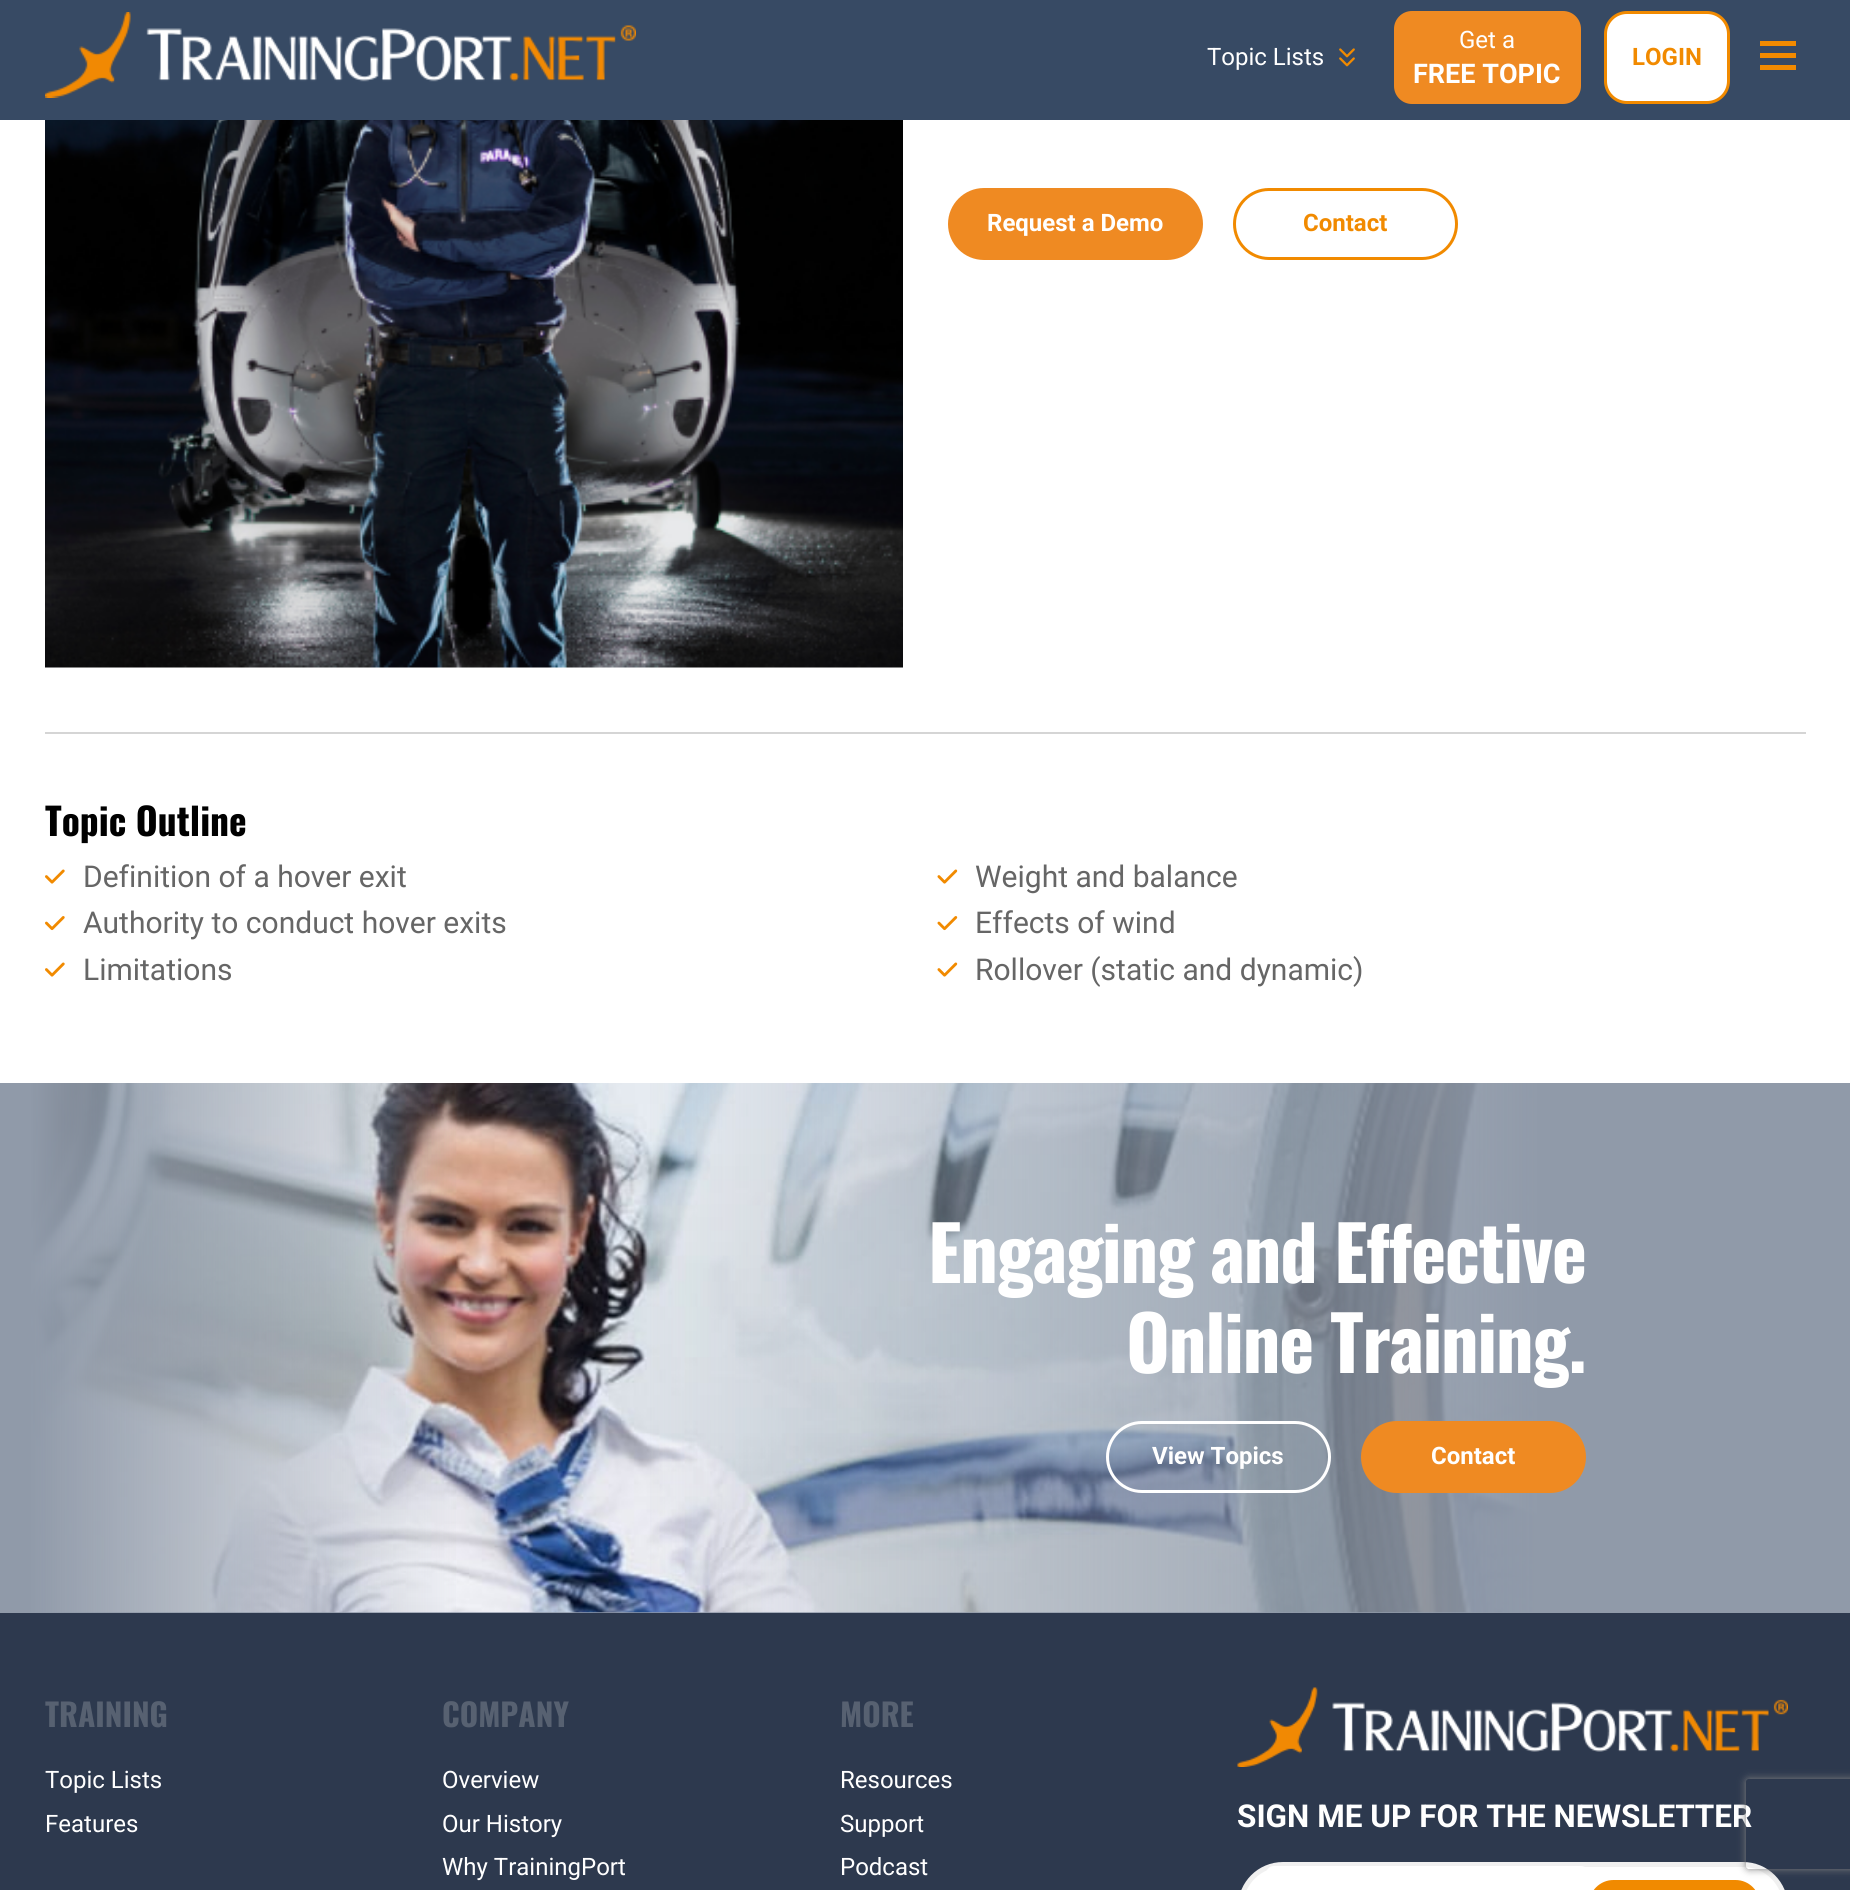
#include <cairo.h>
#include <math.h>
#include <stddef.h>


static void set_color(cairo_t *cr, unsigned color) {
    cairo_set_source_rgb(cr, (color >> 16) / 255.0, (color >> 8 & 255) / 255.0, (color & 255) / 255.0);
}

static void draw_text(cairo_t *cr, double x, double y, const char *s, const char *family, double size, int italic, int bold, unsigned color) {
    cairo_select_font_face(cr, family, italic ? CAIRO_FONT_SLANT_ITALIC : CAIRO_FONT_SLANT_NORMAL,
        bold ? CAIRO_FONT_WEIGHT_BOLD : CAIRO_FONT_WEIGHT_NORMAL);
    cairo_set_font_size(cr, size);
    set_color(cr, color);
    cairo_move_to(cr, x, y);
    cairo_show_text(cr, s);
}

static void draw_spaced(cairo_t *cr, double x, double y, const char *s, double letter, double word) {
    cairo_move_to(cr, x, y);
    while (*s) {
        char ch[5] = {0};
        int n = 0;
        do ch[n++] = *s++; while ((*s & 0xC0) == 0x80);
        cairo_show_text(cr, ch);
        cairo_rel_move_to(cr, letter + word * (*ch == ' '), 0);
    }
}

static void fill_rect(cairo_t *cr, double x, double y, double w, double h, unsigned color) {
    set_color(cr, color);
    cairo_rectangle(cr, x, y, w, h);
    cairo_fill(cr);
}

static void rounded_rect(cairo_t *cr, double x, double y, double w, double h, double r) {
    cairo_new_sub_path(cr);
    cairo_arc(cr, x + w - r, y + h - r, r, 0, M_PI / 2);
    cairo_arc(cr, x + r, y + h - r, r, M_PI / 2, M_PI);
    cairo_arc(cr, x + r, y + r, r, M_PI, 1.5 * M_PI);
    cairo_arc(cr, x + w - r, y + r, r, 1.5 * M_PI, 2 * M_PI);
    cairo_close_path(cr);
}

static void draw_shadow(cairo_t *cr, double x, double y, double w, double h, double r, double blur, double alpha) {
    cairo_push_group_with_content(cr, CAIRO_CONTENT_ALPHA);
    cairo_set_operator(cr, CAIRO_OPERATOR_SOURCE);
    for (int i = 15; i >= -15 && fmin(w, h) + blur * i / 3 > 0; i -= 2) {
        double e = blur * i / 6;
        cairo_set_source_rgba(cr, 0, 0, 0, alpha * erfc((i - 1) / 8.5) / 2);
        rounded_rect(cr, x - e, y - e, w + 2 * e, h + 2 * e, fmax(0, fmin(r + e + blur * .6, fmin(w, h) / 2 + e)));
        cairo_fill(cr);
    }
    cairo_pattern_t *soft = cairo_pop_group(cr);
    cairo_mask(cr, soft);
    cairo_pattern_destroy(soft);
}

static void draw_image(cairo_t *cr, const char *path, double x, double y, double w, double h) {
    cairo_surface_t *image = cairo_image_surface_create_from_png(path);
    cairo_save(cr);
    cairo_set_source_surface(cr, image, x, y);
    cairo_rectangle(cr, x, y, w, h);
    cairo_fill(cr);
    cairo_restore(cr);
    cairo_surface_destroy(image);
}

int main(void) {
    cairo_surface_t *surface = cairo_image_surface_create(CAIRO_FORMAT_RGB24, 1850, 1890);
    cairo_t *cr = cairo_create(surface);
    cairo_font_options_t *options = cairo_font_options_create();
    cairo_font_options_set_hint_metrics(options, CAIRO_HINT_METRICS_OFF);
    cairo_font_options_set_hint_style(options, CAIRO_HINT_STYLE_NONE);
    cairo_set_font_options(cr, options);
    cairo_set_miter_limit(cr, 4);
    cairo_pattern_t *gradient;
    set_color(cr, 0xFFFFFF);
    cairo_paint(cr);
    fill_rect(cr, 0, 0, 1850, 120, 0x374A64);
    draw_image(cr, "assets/img1.png", 45, 12, 591, 86);
    draw_text(cr, 1207, 65, "Topic Lists", "Roboto", 24, 0, 0, 0xFFFFFF);
    draw_image(cr, "assets/img2.png", 1339, 48, 16, 10);
    draw_image(cr, "assets/img3.png", 1339, 57, 16, 10);
    set_color(cr, 0xEF8A22);
    rounded_rect(cr, 1394, 11, 187, 93, 18);
    cairo_fill(cr);
    draw_text(cr, 1459, 48, "Get a", "Roboto", 24, 0, 0, 0xFFFFFF);
    draw_text(cr, 1413, 83, "FREE TOPIC", "Roboto", 27, 0, 1, 0xFFFFFF);
    rounded_rect(cr, 1605.5, 12.5, 123, 90, 21.5);
    cairo_fill_preserve(cr);
    set_color(cr, 0xF18A00);
    cairo_set_line_width(cr, 3);
    cairo_stroke(cr);
    draw_text(cr, 1632, 65, "LOGIN", "Roboto", 24, 0, 1, 0xF18A00);
    fill_rect(cr, 1760, 41, 36, 5, 0xF18A00);
    fill_rect(cr, 1760, 53, 36, 5, 0xF18A00);
    fill_rect(cr, 1760, 65, 36, 5, 0xF18A00);
    draw_image(cr, "assets/img4.png", 45, 120, 858, 548);
    set_color(cr, 0xEF8A22);
    rounded_rect(cr, 948, 188, 255, 72, 36);
    cairo_fill(cr);
    draw_text(cr, 987, 231, "Request a Demo", "Roboto", 24, 0, 1, 0xFFFFFF);
    rounded_rect(cr, 1234.5, 189.5, 222, 69, 34.5);
    set_color(cr, 0xF18A00);
    cairo_stroke(cr);
    draw_text(cr, 1303, 231, "Contact", "Roboto", 24, 0, 1, 0xF18A00);
    fill_rect(cr, 45, 732, 1761, 2, 0xD5D5D5);
    draw_text(cr, 45, 836, "Topic Outline", "Oswald", 37.5, 0, 1, 0x000000);
    draw_image(cr, "assets/img5.png", 45, 869, 20, 15);
    draw_text(cr, 83, 887, "Definition of a hover exit", "Roboto", 30, 0, 0, 0x666666);
    draw_image(cr, "assets/img6.png", 937, 869, 21, 15);
    draw_text(cr, 975, 887, "Weight and balance", "Roboto", 30, 0, 0, 0x666666);
    draw_image(cr, "assets/img7.png", 45, 916, 20, 15);
    draw_text(cr, 83, 933, "Authority to conduct hover exits", "Roboto", 30, 0, 0, 0x666666);
    draw_image(cr, "assets/img8.png", 937, 916, 21, 15);
    draw_text(cr, 975, 933, "Effects of wind", "Roboto", 30, 0, 0, 0x666666);
    draw_image(cr, "assets/img5.png", 45, 962, 20, 15);
    draw_text(cr, 83, 980, "Limitations", "Roboto", 30, 0, 0, 0x666666);
    draw_image(cr, "assets/img6.png", 937, 962, 21, 15);
    draw_text(cr, 975, 980, "Rollover (static and dynamic)", "Roboto", 30, 0, 0, 0x666666);
    fill_rect(cr, 0, 1083, 1850, 530, 0x909AA9);
    draw_image(cr, "assets/img9.png", 31, 1083, 1506, 530);
    gradient = cairo_pattern_create_linear(15, 1348, 465, 1348);
    cairo_pattern_add_color_stop_rgba(gradient, 0.03, 0.565, 0.604, 0.663, 1);
    cairo_pattern_add_color_stop_rgba(gradient, 1, 0.565, 0.604, 0.663, 0);
    cairo_set_source(cr, gradient);
    cairo_pattern_destroy(gradient);
    cairo_rectangle(cr, 31, 1083, 425, 530);
    cairo_fill(cr);
    gradient = cairo_pattern_create_linear(1830, 1348, 630, 1348);
    cairo_pattern_add_color_stop_rgba(gradient, 0.24, 0.565, 0.604, 0.663, 1);
    cairo_pattern_add_color_stop_rgba(gradient, 1, 0.565, 0.604, 0.663, 0);
    cairo_set_source(cr, gradient);
    cairo_pattern_destroy(gradient);
    cairo_rectangle(cr, 650, 1083, 887, 530);
    cairo_fill(cr);
    cairo_select_font_face(cr, "Oswald", CAIRO_FONT_SLANT_NORMAL, CAIRO_FONT_WEIGHT_BOLD);
    cairo_set_font_size(cr, 75);
    set_color(cr, 0xFFFFFF);
    draw_spaced(cr, 928, 1283, "Engaging and Effective", -1.5, 0);
    draw_spaced(cr, 1126, 1373, "Online Training.", -1.5, 0);
    rounded_rect(cr, 1107.5, 1422.5, 222, 69, 34.5);
    cairo_stroke(cr);
    draw_text(cr, 1152, 1464, "View Topics", "Roboto", 24, 0, 1, 0xFFFFFF);
    set_color(cr, 0xEF8A22);
    rounded_rect(cr, 1361, 1421, 225, 72, 36);
    cairo_fill(cr);
    draw_text(cr, 1431, 1464, "Contact", "Roboto", 24, 0, 1, 0xFFFFFF);
    fill_rect(cr, 0, 1613, 1850, 277, 0x2D394E);
    draw_text(cr, 45, 1727, "TRAINING", "Oswald", 31.5, 0, 1, 0x576171);
    draw_text(cr, 45, 1788, "Topic Lists", "Roboto", 24, 0, 0, 0xFFFFFF);
    draw_text(cr, 45, 1832, "Features", "Roboto", 24, 0, 0, 0xFFFFFF);
    draw_text(cr, 442, 1727, "COMPANY", "Oswald", 31.5, 0, 1, 0x576171);
    draw_text(cr, 442, 1788, "Overview", "Roboto", 24, 0, 0, 0xFFFFFF);
    draw_text(cr, 442, 1832, "Our History", "Roboto", 24, 0, 0, 0xFFFFFF);
    draw_text(cr, 442, 1875, "Why TrainingPort", "Roboto", 24, 0, 0, 0xFFFFFF);
    draw_text(cr, 840, 1727, "MORE", "Oswald", 31.5, 0, 1, 0x576171);
    draw_text(cr, 840, 1788, "Resources", "Roboto", 24, 0, 0, 0xFFFFFF);
    draw_text(cr, 840, 1832, "Support", "Roboto", 24, 0, 0, 0xFFFFFF);
    draw_text(cr, 840, 1875, "Podcast", "Roboto", 24, 0, 0, 0xFFFFFF);
    draw_image(cr, "assets/img10.png", 1237, 1687, 551, 80);
    draw_text(cr, 1237, 1827, "SIGN ME UP FOR THE NEWSLETTER", "Roboto", 31.5, 0, 1, 0xFFFFFF);
    rounded_rect(cr, 1240.5, 1864.5, 545, 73, 42.5);
    cairo_fill_preserve(cr);
    set_color(cr, 0xF0F0F0);
    cairo_set_line_width(cr, 5);
    cairo_stroke(cr);
    set_color(cr, 0xFFFFFF);
    rounded_rect(cr, 1266, 1866, 323, 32, 8);
    cairo_fill(cr);
    set_color(cr, 0xF18A00);
    rounded_rect(cr, 1589, 1880, 171, 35, 24.5);
    cairo_fill(cr);
    cairo_save(cr);
    cairo_set_fill_rule(cr, CAIRO_FILL_RULE_EVEN_ODD);
    cairo_new_path(cr);
    cairo_move_to(cr, 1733, 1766);
    cairo_line_to(cr, 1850, 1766);
    cairo_line_to(cr, 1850, 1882);
    cairo_line_to(cr, 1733, 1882);
    cairo_close_path(cr);
    cairo_move_to(cr, 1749, 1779);
    cairo_line_to(cr, 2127, 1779);
    cairo_curve_to(cr, 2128.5, 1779, 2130, 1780.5, 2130, 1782);
    cairo_line_to(cr, 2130, 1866);
    cairo_curve_to(cr, 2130, 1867.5, 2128.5, 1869, 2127, 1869);
    cairo_line_to(cr, 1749, 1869);
    cairo_curve_to(cr, 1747.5, 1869, 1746, 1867.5, 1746, 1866);
    cairo_line_to(cr, 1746, 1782);
    cairo_curve_to(cr, 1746, 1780.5, 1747.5, 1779, 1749, 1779);
    cairo_close_path(cr);
    cairo_clip(cr);
    set_color(cr, 0x808080);
    draw_shadow(cr, 1746, 1779, 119, 90, 3, 4, 1);
    cairo_restore(cr);
    cairo_surface_write_to_png(surface, "output.png");
    cairo_font_options_destroy(options);
    cairo_destroy(cr);
    cairo_surface_destroy(surface);
    return 0;
}
